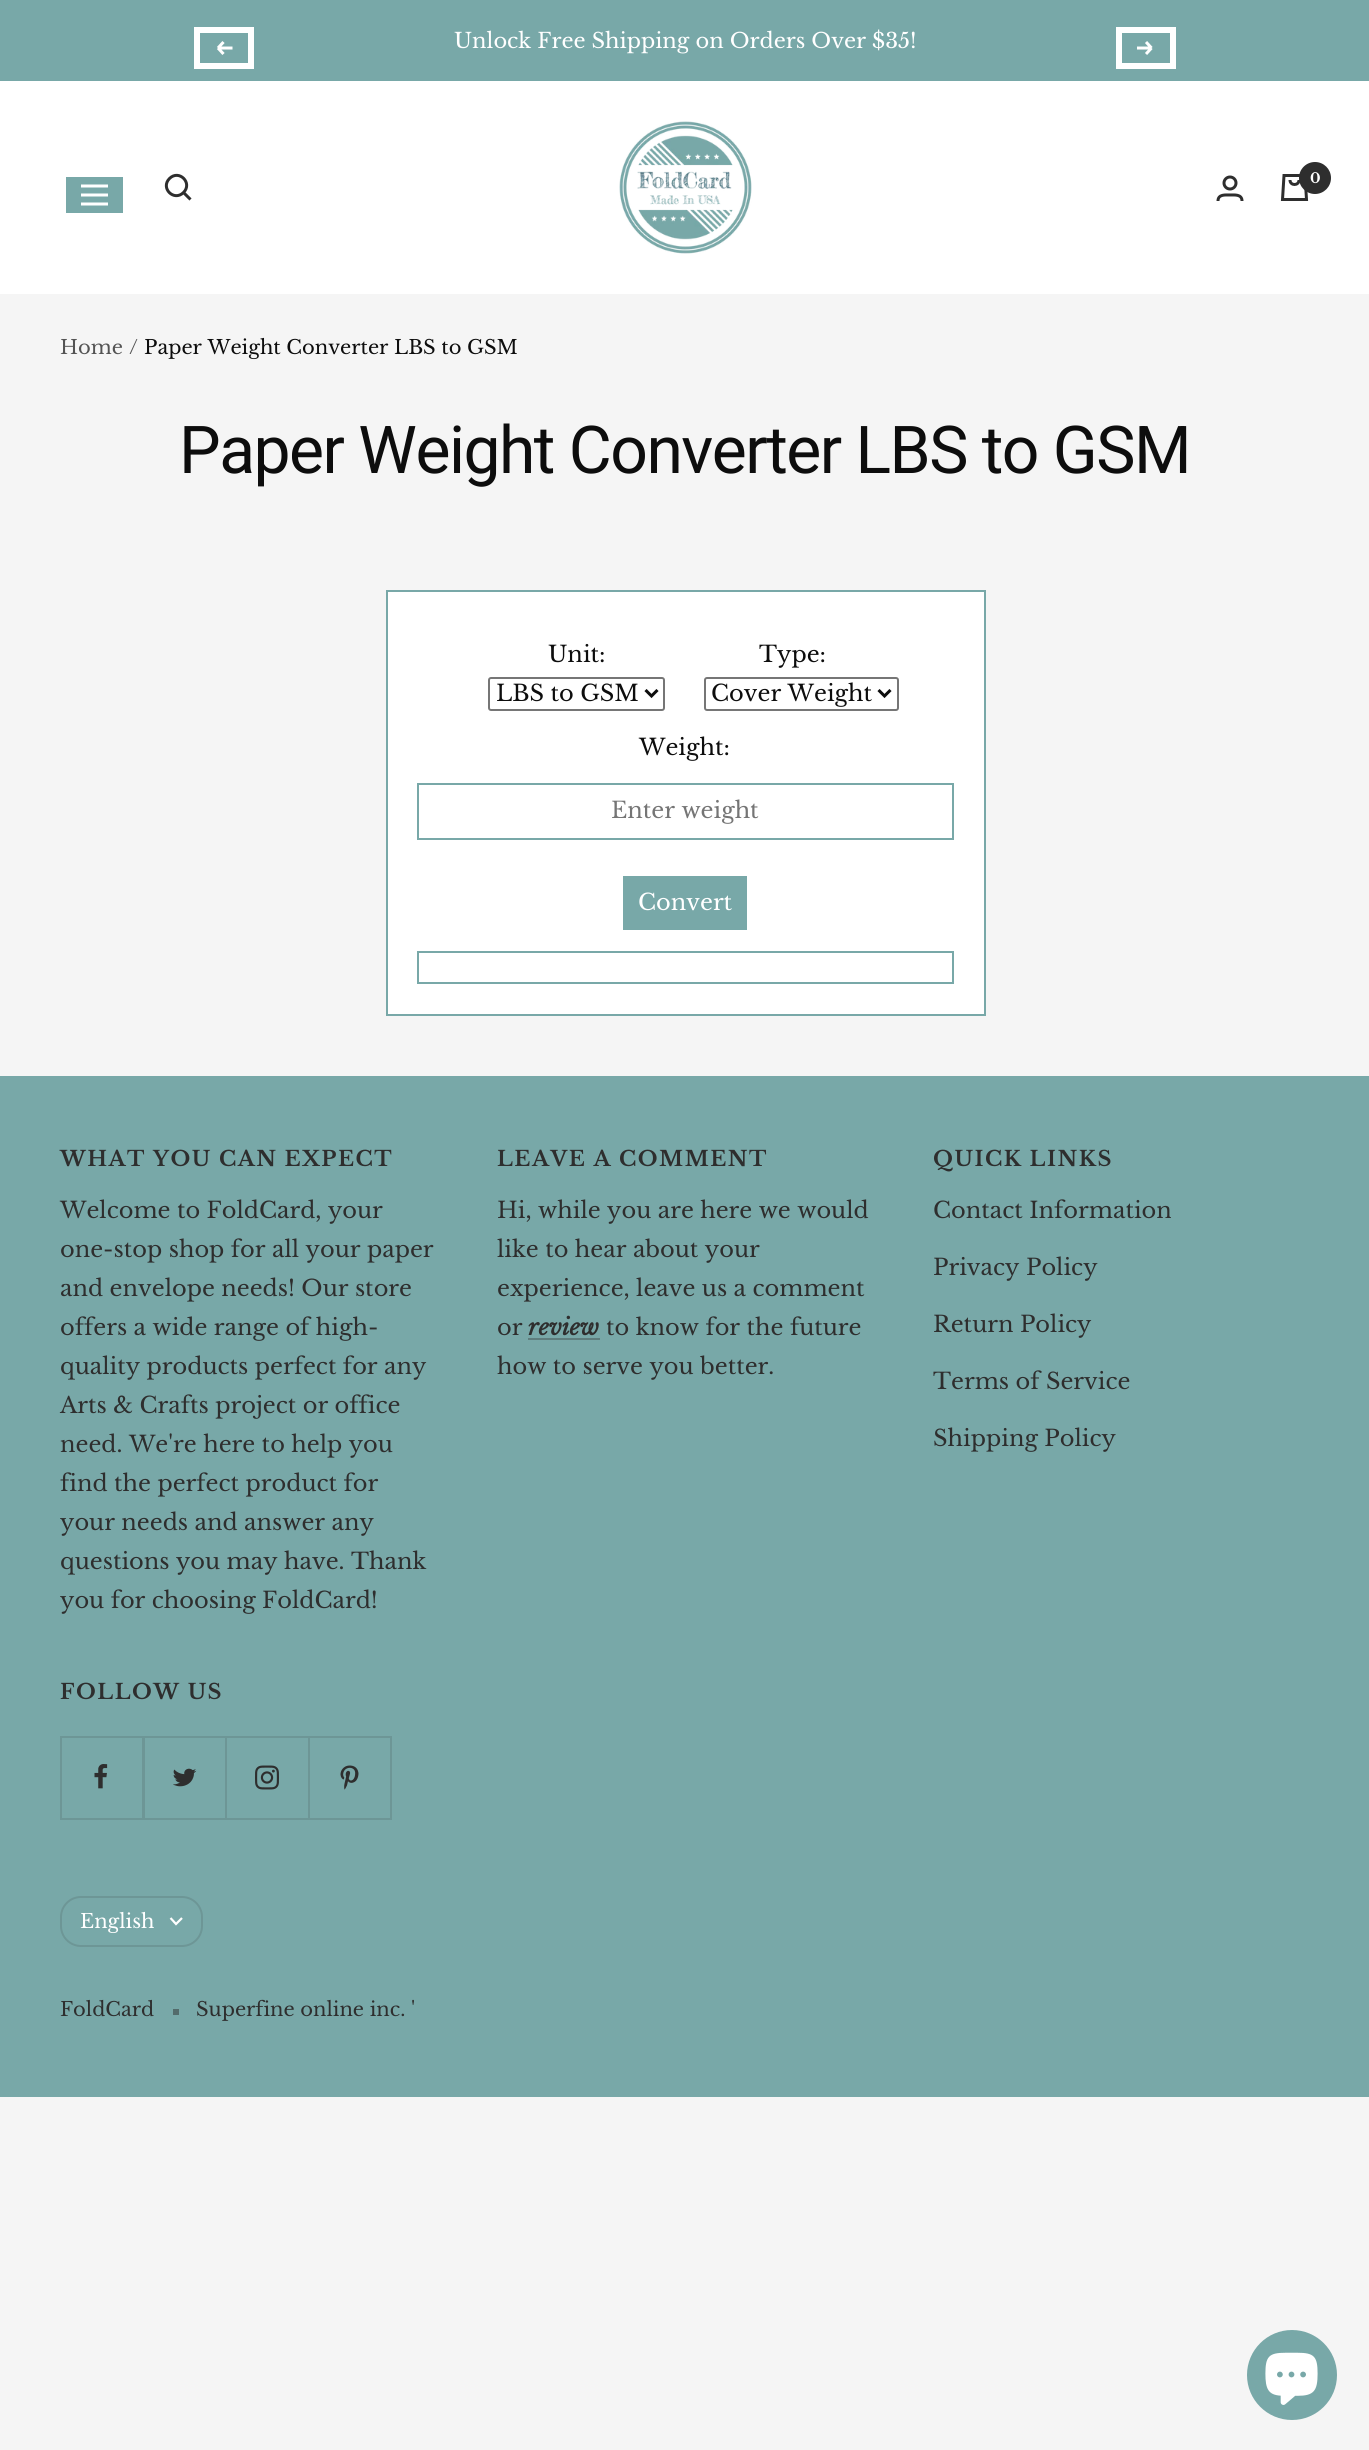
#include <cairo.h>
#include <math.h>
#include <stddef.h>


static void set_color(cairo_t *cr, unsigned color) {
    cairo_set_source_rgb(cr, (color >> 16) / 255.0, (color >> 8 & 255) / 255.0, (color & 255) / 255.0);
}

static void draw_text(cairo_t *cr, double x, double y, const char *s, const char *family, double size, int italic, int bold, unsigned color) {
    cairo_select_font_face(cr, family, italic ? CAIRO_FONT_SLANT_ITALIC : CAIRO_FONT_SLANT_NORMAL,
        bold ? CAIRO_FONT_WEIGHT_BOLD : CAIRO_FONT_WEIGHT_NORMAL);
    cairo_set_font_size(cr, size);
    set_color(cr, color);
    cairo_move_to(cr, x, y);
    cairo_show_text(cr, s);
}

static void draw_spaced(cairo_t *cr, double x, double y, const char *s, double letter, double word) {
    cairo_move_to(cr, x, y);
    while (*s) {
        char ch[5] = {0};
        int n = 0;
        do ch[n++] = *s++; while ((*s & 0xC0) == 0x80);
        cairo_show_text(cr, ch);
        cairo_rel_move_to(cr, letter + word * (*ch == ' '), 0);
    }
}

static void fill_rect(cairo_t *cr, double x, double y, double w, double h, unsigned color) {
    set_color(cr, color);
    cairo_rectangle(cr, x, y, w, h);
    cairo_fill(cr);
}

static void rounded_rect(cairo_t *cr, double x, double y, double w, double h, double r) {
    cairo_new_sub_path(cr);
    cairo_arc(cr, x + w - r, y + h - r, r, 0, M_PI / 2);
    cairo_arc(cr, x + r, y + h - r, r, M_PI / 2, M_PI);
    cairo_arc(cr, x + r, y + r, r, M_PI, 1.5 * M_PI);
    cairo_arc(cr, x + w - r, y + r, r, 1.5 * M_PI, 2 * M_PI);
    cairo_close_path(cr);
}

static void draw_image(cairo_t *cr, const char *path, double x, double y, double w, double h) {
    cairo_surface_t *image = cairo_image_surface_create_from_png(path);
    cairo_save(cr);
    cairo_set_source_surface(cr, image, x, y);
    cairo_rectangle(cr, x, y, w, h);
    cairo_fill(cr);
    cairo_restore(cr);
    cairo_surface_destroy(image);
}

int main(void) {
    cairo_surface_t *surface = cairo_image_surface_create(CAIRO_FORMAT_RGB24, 1369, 2450);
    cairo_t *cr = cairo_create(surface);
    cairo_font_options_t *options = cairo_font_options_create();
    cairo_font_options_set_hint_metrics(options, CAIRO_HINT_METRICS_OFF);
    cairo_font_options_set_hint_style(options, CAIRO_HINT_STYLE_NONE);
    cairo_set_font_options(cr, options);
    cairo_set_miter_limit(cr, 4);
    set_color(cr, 0xF5F5F5);
    cairo_paint(cr);
    fill_rect(cr, 0, 0, 1369, 81, 0x78A8A8);
    cairo_rectangle(cr, 197, 30, 54, 36);
    set_color(cr, 0xFFFFFF);
    cairo_set_line_width(cr, 6);
    cairo_stroke(cr);
    cairo_new_path(cr);
    cairo_move_to(cr, 232.5, 48);
    cairo_line_to(cr, 218, 48);
    cairo_move_to(cr, 218, 48);
    cairo_line_to(cr, 223.5, 54);
    cairo_move_to(cr, 218, 48);
    cairo_line_to(cr, 223.5, 42);
    cairo_set_line_width(cr, 3);
    cairo_stroke(cr);
    draw_text(cr, 454, 48, "Unlock Free Shipping on Orders Over $35!", "Libre Baskerville", 21, 0, 0, 0xFFFFFF);
    cairo_rectangle(cr, 1119, 30, 54, 36);
    cairo_set_line_width(cr, 6);
    cairo_stroke(cr);
    cairo_new_path(cr);
    cairo_move_to(cr, 1137, 48);
    cairo_line_to(cr, 1151.5, 48);
    cairo_move_to(cr, 1151.5, 48);
    cairo_line_to(cr, 1146, 54);
    cairo_move_to(cr, 1151.5, 48);
    cairo_line_to(cr, 1146, 42);
    cairo_set_line_width(cr, 3);
    cairo_stroke(cr);
    fill_rect(cr, 0, 81, 1369, 213, 0xFFFFFF);
    fill_rect(cr, 66, 177, 57, 36, 0x78A8A8);
    cairo_new_path(cr);
    cairo_move_to(cr, 81, 186);
    cairo_line_to(cr, 108, 186);
    cairo_move_to(cr, 81, 204);
    cairo_line_to(cr, 108, 204);
    cairo_close_path(cr);
    cairo_move_to(cr, 81, 195);
    cairo_line_to(cr, 108, 195);
    cairo_close_path(cr);
    set_color(cr, 0xFFFFFF);
    cairo_stroke(cr);
    cairo_new_path(cr);
    cairo_move_to(cr, 183.5, 192.5);
    cairo_curve_to(cr, 193, 183, 179, 169, 169.5, 178.5);
    cairo_curve_to(cr, 160, 188, 174, 202, 183.5, 192.5);
    cairo_close_path(cr);
    cairo_move_to(cr, 183.5, 192.5);
    cairo_line_to(cr, 190.5, 199.5);
    set_color(cr, 0x2E2E2E);
    cairo_stroke(cr);
    draw_image(cr, "assets/img1.png", 619, 121, 133, 133);
    cairo_arc(cr, 1230, 183, 6, 0, 2 * M_PI);
    cairo_stroke(cr);
    cairo_new_path(cr);
    cairo_move_to(cr, 1218, 201);
    cairo_curve_to(cr, 1218, 194, 1225.5, 195, 1230, 195);
    cairo_curve_to(cr, 1234.5, 195, 1242, 194, 1242, 201);
    cairo_stroke(cr);
    cairo_new_path(cr);
    cairo_move_to(cr, 1284, 175.5);
    cairo_line_to(cr, 1305, 175.5);
    cairo_line_to(cr, 1306.5, 199.5);
    cairo_line_to(cr, 1282.5, 199.5);
    cairo_close_path(cr);
    cairo_move_to(cr, 1290, 180);
    cairo_curve_to(cr, 1290, 186, 1299, 186, 1299, 180);
    cairo_stroke(cr);
    cairo_arc(cr, 1315, 178, 16, 0, 2 * M_PI);
    cairo_fill(cr);
    draw_text(cr, 1310, 183, "0", "Libre Baskerville", 14, 0, 1, 0xFFFFFF);
    draw_text(cr, 60, 354, "Home", "Libre Baskerville", 19.5, 0, 0, 0x535353);
    draw_text(cr, 129, 354, "/", "Libre Baskerville", 19.5, 0, 0, 0x535353);
    draw_text(cr, 144, 354, "Paper Weight Converter LBS to GSM", "Libre Baskerville", 19.5, 0, 0, 0x0D0D0D);
    cairo_select_font_face(cr, "Roboto", CAIRO_FONT_SLANT_NORMAL, CAIRO_FONT_WEIGHT_NORMAL);
    cairo_set_font_size(cr, 66);
    draw_spaced(cr, 179, 473, "Paper Weight Converter LBS to GSM", -1.5, 0);
    set_color(cr, 0xFFFFFF);
    cairo_rectangle(cr, 387, 591, 598, 424);
    cairo_fill_preserve(cr);
    set_color(cr, 0x78A8A8);
    cairo_set_line_width(cr, 2);
    cairo_stroke(cr);
    draw_text(cr, 548, 662, "Unit:", "Libre Baskerville", 22.5, 0, 0, 0x0D0D0D);
    rounded_rect(cr, 489, 678, 175, 32, 2);
    set_color(cr, 0x767676);
    cairo_stroke(cr);
    cairo_new_path(cr);
    cairo_move_to(cr, 645.5, 690);
    cairo_line_to(cr, 651.5, 696);
    cairo_line_to(cr, 657.5, 690);
    set_color(cr, 0x0D0D0D);
    cairo_set_line_width(cr, 3);
    cairo_stroke(cr);
    draw_text(cr, 496, 701, "LBS to GSM", "Libre Baskerville", 22.5, 0, 0, 0x0D0D0D);
    draw_text(cr, 759, 662, "Type:", "Libre Baskerville", 22.5, 0, 0, 0x0D0D0D);
    rounded_rect(cr, 705, 678, 193, 32, 2);
    set_color(cr, 0x767676);
    cairo_set_line_width(cr, 2);
    cairo_stroke(cr);
    cairo_new_path(cr);
    cairo_move_to(cr, 878.5, 690);
    cairo_line_to(cr, 884.5, 696);
    cairo_line_to(cr, 890.5, 690);
    set_color(cr, 0x0D0D0D);
    cairo_set_line_width(cr, 3);
    cairo_stroke(cr);
    draw_text(cr, 711, 701, "Cover Weight", "Libre Baskerville", 22.5, 0, 0, 0x0D0D0D);
    draw_text(cr, 639, 755, "Weight:", "Libre Baskerville", 22.5, 0, 0, 0x0D0D0D);
    cairo_rectangle(cr, 418, 784, 535, 55);
    set_color(cr, 0x78A8A8);
    cairo_set_line_width(cr, 2);
    cairo_stroke(cr);
    draw_text(cr, 611, 818, "Enter weight", "Libre Baskerville", 22.5, 0, 0, 0x757575);
    fill_rect(cr, 623, 876, 124, 54, 0x78A8A8);
    draw_text(cr, 638, 910, "Convert", "Libre Baskerville", 22.5, 0, 0, 0xFFFFFF);
    cairo_rectangle(cr, 418, 952, 535, 31);
    set_color(cr, 0x78A8A8);
    cairo_stroke(cr);
    fill_rect(cr, 0, 1076, 1369, 1021, 0x78A8A8);
    cairo_select_font_face(cr, "Libre Baskerville", CAIRO_FONT_SLANT_NORMAL, CAIRO_FONT_WEIGHT_BOLD);
    cairo_set_font_size(cr, 21);
    set_color(cr, 0x2E2E2E);
    draw_spaced(cr, 60, 1166, "WHAT YOU CAN EXPECT", 1.5, 0);
    draw_text(cr, 60, 1218, "Welcome to FoldCard, your", "Libre Baskerville", 22.5, 0, 0, 0x2E2E2E);
    draw_text(cr, 60, 1257, "one-stop shop for all your paper", "Libre Baskerville", 22.5, 0, 0, 0x2E2E2E);
    draw_text(cr, 60, 1296, "and envelope needs! Our store", "Libre Baskerville", 22.5, 0, 0, 0x2E2E2E);
    draw_text(cr, 60, 1335, "offers a wide range of high-", "Libre Baskerville", 22.5, 0, 0, 0x2E2E2E);
    draw_text(cr, 60, 1374, "quality products perfect for any", "Libre Baskerville", 22.5, 0, 0, 0x2E2E2E);
    draw_text(cr, 60, 1413, "Arts & Crafts project or office", "Libre Baskerville", 22.5, 0, 0, 0x2E2E2E);
    draw_text(cr, 60, 1452, "need. We're here to help you", "Libre Baskerville", 22.5, 0, 0, 0x2E2E2E);
    draw_text(cr, 60, 1491, "find the perfect product for", "Libre Baskerville", 22.5, 0, 0, 0x2E2E2E);
    draw_text(cr, 60, 1530, "your needs and answer any", "Libre Baskerville", 22.5, 0, 0, 0x2E2E2E);
    draw_text(cr, 60, 1569, "questions you may have. Thank", "Libre Baskerville", 22.5, 0, 0, 0x2E2E2E);
    draw_text(cr, 60, 1608, "you for choosing FoldCard!", "Libre Baskerville", 22.5, 0, 0, 0x2E2E2E);
    cairo_select_font_face(cr, "Libre Baskerville", CAIRO_FONT_SLANT_NORMAL, CAIRO_FONT_WEIGHT_BOLD);
    cairo_set_font_size(cr, 21);
    draw_spaced(cr, 497, 1166, "LEAVE A COMMENT", 1.5, 0);
    draw_text(cr, 497, 1218, "Hi, while you are here we would", "Libre Baskerville", 22.5, 0, 0, 0x2E2E2E);
    draw_text(cr, 497, 1257, "like to hear about your", "Libre Baskerville", 22.5, 0, 0, 0x2E2E2E);
    draw_text(cr, 497, 1296, "experience, leave us a comment", "Libre Baskerville", 22.5, 0, 0, 0x2E2E2E);
    draw_text(cr, 497, 1335, "or", "Libre Baskerville", 22.5, 0, 0, 0x2E2E2E);
    draw_text(cr, 528, 1335, "review", "Libre Baskerville", 22.5, 1, 1, 0x2E2E2E);
    fill_rect(cr, 528, 1338, 72, 2, 0x5E7D7D);
    draw_text(cr, 606, 1335, "to know for the future", "Libre Baskerville", 22.5, 0, 0, 0x2E2E2E);
    draw_text(cr, 497, 1374, "how to serve you better.", "Libre Baskerville", 22.5, 0, 0, 0x2E2E2E);
    cairo_select_font_face(cr, "Libre Baskerville", CAIRO_FONT_SLANT_NORMAL, CAIRO_FONT_WEIGHT_BOLD);
    cairo_set_font_size(cr, 21);
    draw_spaced(cr, 933, 1166, "QUICK LINKS", 1.5, 0);
    draw_text(cr, 933, 1218, "Contact Information", "Libre Baskerville", 22.5, 0, 0, 0x2E2E2E);
    draw_text(cr, 933, 1275, "Privacy Policy", "Libre Baskerville", 22.5, 0, 0, 0x2E2E2E);
    draw_text(cr, 933, 1332, "Return Policy", "Libre Baskerville", 22.5, 0, 0, 0x2E2E2E);
    draw_text(cr, 933, 1389, "Terms of Service", "Libre Baskerville", 22.5, 0, 0, 0x2E2E2E);
    draw_text(cr, 933, 1446, "Shipping Policy", "Libre Baskerville", 22.5, 0, 0, 0x2E2E2E);
    cairo_select_font_face(cr, "Libre Baskerville", CAIRO_FONT_SLANT_NORMAL, CAIRO_FONT_WEIGHT_BOLD);
    cairo_set_font_size(cr, 21);
    draw_spaced(cr, 60, 1699, "FOLLOW US", 1.5, 0);
    set_color(cr, 0x6D9696);
    cairo_new_path(cr);
    cairo_move_to(cr, 62, 1818);
    cairo_line_to(cr, 62, 1820);
    cairo_line_to(cr, 144, 1820);
    cairo_line_to(cr, 144, 1737);
    cairo_line_to(cr, 142, 1737);
    cairo_line_to(cr, 142, 1818);
    cairo_close_path(cr);
    cairo_fill(cr);
    cairo_new_path(cr);
    cairo_move_to(cr, 60, 1818);
    cairo_line_to(cr, 60, 1820);
    cairo_line_to(cr, 143, 1820);
    cairo_line_to(cr, 143, 1737);
    cairo_line_to(cr, 142, 1737);
    cairo_line_to(cr, 142, 1818);
    cairo_close_path(cr);
    cairo_fill(cr);
    fill_rect(cr, 142, 1736, 1, 1, 0x6D9696);
    fill_rect(cr, 60, 1736, 83, 2, 0x6D9696);
    fill_rect(cr, 60, 1736, 2, 82, 0x6D9696);
    draw_image(cr, "assets/img2.png", 94, 1764, 14, 25);
    cairo_new_path(cr);
    cairo_move_to(cr, 144, 1818);
    cairo_line_to(cr, 144, 1820);
    cairo_line_to(cr, 227, 1820);
    cairo_line_to(cr, 227, 1737);
    cairo_line_to(cr, 225, 1737);
    cairo_line_to(cr, 225, 1818);
    cairo_close_path(cr);
    cairo_fill(cr);
    fill_rect(cr, 225, 1736, 2, 1, 0x6D9696);
    fill_rect(cr, 143, 1736, 82, 2, 0x6D9696);
    fill_rect(cr, 144, 1736, 1, 82, 0x6D9696);
    draw_image(cr, "assets/img3.png", 173, 1768, 24, 19);
    cairo_new_path(cr);
    cairo_move_to(cr, 227, 1818);
    cairo_line_to(cr, 227, 1820);
    cairo_line_to(cr, 309, 1820);
    cairo_line_to(cr, 309, 1737);
    cairo_line_to(cr, 308, 1737);
    cairo_line_to(cr, 308, 1818);
    cairo_close_path(cr);
    cairo_fill(cr);
    fill_rect(cr, 225, 1736, 83, 2, 0x6D9696);
    draw_image(cr, "assets/img4.png", 255, 1765, 24, 25);
    cairo_new_path(cr);
    cairo_move_to(cr, 309, 1818);
    cairo_line_to(cr, 309, 1820);
    cairo_line_to(cr, 392, 1820);
    cairo_line_to(cr, 392, 1737);
    cairo_line_to(cr, 390, 1737);
    cairo_line_to(cr, 390, 1818);
    cairo_close_path(cr);
    cairo_fill(cr);
    fill_rect(cr, 390, 1736, 2, 1, 0x6D9696);
    fill_rect(cr, 308, 1736, 82, 2, 0x6D9696);
    fill_rect(cr, 309, 1736, 1, 82, 0x6D9696);
    draw_image(cr, "assets/img5.png", 340, 1765, 19, 25);
    rounded_rect(cr, 61, 1897, 141, 49, 20);
    cairo_stroke(cr);
    draw_text(cr, 80, 1928, "English", "Libre Baskerville", 19.5, 0, 0, 0xFFFFFF);
    cairo_new_path(cr);
    cairo_move_to(cr, 170.5, 1918);
    cairo_line_to(cr, 176, 1924);
    cairo_line_to(cr, 182, 1918);
    cairo_set_line_width(cr, 2.2);
    cairo_stroke(cr);
    draw_text(cr, 60, 2016, "FoldCard", "Libre Baskerville", 19.5, 0, 0, 0x2E2E2E);
    fill_rect(cr, 173, 2009, 6, 6, 0x536B6B);
    draw_text(cr, 196, 2016, "Superfine online inc. '", "Libre Baskerville", 19.5, 0, 0, 0x2E2E2E);
    set_color(cr, 0x78A8A8);
    cairo_new_path(cr);
    cairo_arc(cr, 1292, 2375, 45, 0, 2 * M_PI);
    cairo_fill(cr);
    draw_image(cr, "assets/img6.png", 1265, 2352, 53, 53);
    cairo_surface_write_to_png(surface, "output.png");
    cairo_font_options_destroy(options);
    cairo_destroy(cr);
    cairo_surface_destroy(surface);
    return 0;
}
